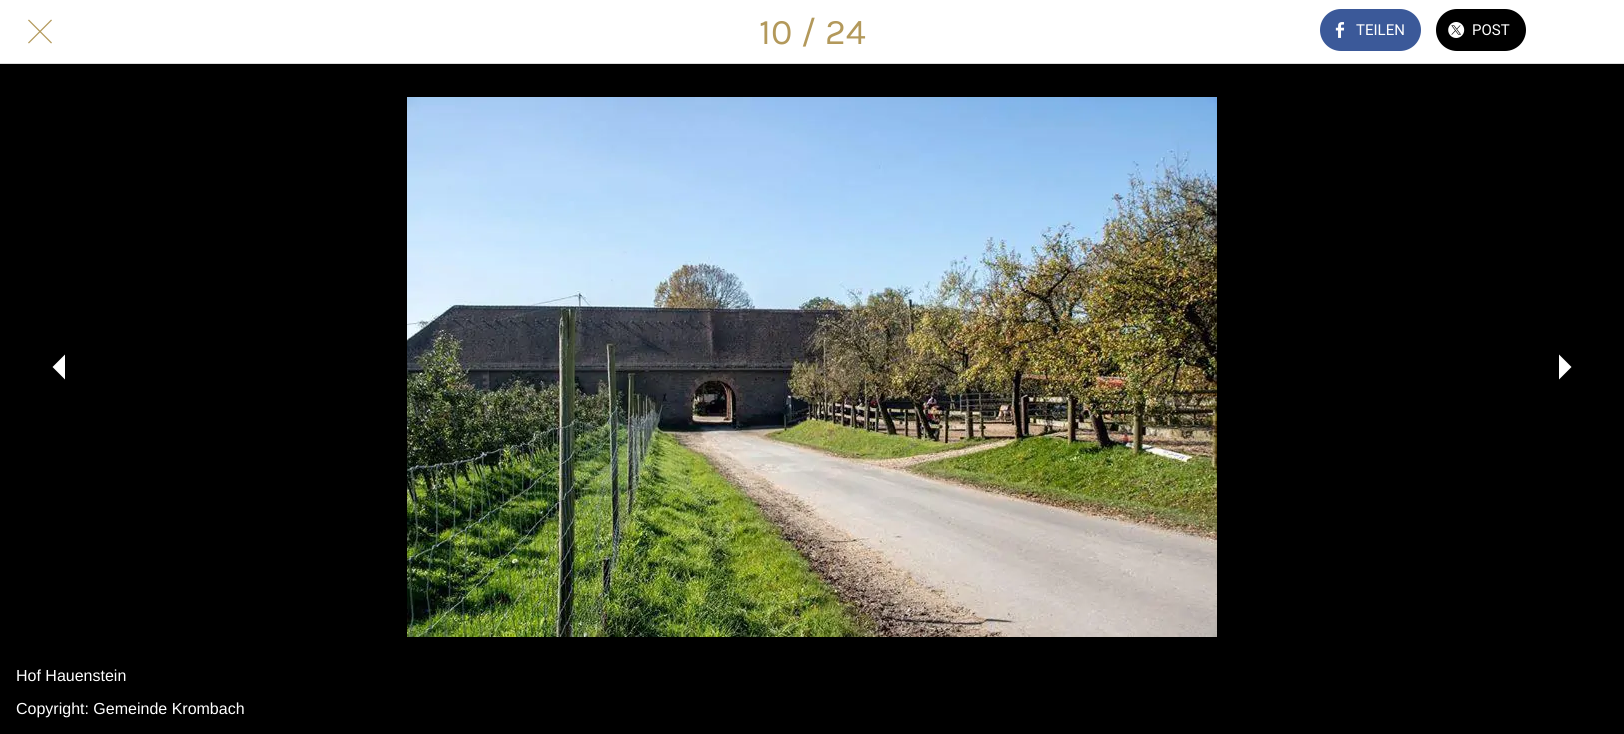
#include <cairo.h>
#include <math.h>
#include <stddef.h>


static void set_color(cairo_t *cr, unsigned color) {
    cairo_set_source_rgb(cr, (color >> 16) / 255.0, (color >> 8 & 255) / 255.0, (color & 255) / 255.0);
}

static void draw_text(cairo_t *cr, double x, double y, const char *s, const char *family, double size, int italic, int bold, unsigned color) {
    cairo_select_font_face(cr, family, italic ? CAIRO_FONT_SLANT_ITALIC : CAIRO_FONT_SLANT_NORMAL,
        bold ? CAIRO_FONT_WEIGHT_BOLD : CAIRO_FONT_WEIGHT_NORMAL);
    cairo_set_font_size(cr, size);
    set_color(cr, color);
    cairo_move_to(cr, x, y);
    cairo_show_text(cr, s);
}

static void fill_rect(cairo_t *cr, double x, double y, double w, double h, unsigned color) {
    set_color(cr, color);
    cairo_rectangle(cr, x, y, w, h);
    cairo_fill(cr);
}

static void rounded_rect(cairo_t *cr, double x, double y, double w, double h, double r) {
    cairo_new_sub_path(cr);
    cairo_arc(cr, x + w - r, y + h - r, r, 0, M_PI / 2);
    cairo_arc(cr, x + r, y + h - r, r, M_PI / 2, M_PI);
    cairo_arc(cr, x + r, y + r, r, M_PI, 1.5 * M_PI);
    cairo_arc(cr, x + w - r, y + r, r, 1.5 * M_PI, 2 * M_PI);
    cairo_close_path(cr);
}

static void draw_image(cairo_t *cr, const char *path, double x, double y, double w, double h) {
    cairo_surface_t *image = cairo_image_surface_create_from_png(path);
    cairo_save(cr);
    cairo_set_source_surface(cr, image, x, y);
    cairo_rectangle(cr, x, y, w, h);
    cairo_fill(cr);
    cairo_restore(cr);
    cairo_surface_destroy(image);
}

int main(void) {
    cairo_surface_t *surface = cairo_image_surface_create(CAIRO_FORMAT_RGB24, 1624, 734);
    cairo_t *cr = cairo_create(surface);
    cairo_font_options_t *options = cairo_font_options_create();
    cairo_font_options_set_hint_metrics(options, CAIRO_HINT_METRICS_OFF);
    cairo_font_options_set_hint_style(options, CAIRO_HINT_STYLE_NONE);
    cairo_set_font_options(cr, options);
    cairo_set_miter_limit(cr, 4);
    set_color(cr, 0x000000);
    cairo_paint(cr);
    fill_rect(cr, 0, 0, 1624, 63, 0xFFFFFF);
    fill_rect(cr, 0, 63, 1624, 1, 0xDDDDDD);
    draw_image(cr, "assets/img1.png", 28, 19, 24, 25);
    draw_text(cr, 759, 44, "10 / 24", "Karla", 36, 0, 0, 0xB3995B);
    set_color(cr, 0x3B5999);
    rounded_rect(cr, 1320, 9, 101, 42, 21);
    cairo_fill(cr);
    draw_image(cr, "assets/img2.png", 1335, 22, 10, 16);
    draw_text(cr, 1356, 35, "TEILEN", "Roboto", 15, 0, 0, 0xFFFFFF);
    set_color(cr, 0x000000);
    rounded_rect(cr, 1436, 9, 90, 42, 21);
    cairo_fill(cr);
    draw_image(cr, "assets/img3.png", 1448, 22, 17, 16);
    draw_text(cr, 1472, 35, "POST", "Roboto", 15, 0, 0, 0xFFFFFF);
    draw_image(cr, "assets/img4.png", 407, 97, 810, 540);
    cairo_new_path(cr);
    cairo_move_to(cr, 65, 354.5);
    cairo_line_to(cr, 52.5, 367);
    cairo_line_to(cr, 65, 379.5);
    cairo_close_path(cr);
    cairo_fill(cr);
    cairo_new_path(cr);
    cairo_move_to(cr, 1559, 379.5);
    cairo_line_to(cr, 1571.5, 367);
    cairo_line_to(cr, 1559, 354.5);
    cairo_close_path(cr);
    cairo_fill(cr);
    draw_text(cr, 16, 681, "Hof Hauenstein", "Liberation Sans", 16, 0, 0, 0xFFFFFF);
    draw_text(cr, 16, 714, "Copyright: Gemeinde Krombach", "Liberation Sans", 16, 0, 0, 0xFFFFFF);
    cairo_surface_write_to_png(surface, "output.png");
    cairo_font_options_destroy(options);
    cairo_destroy(cr);
    cairo_surface_destroy(surface);
    return 0;
}
